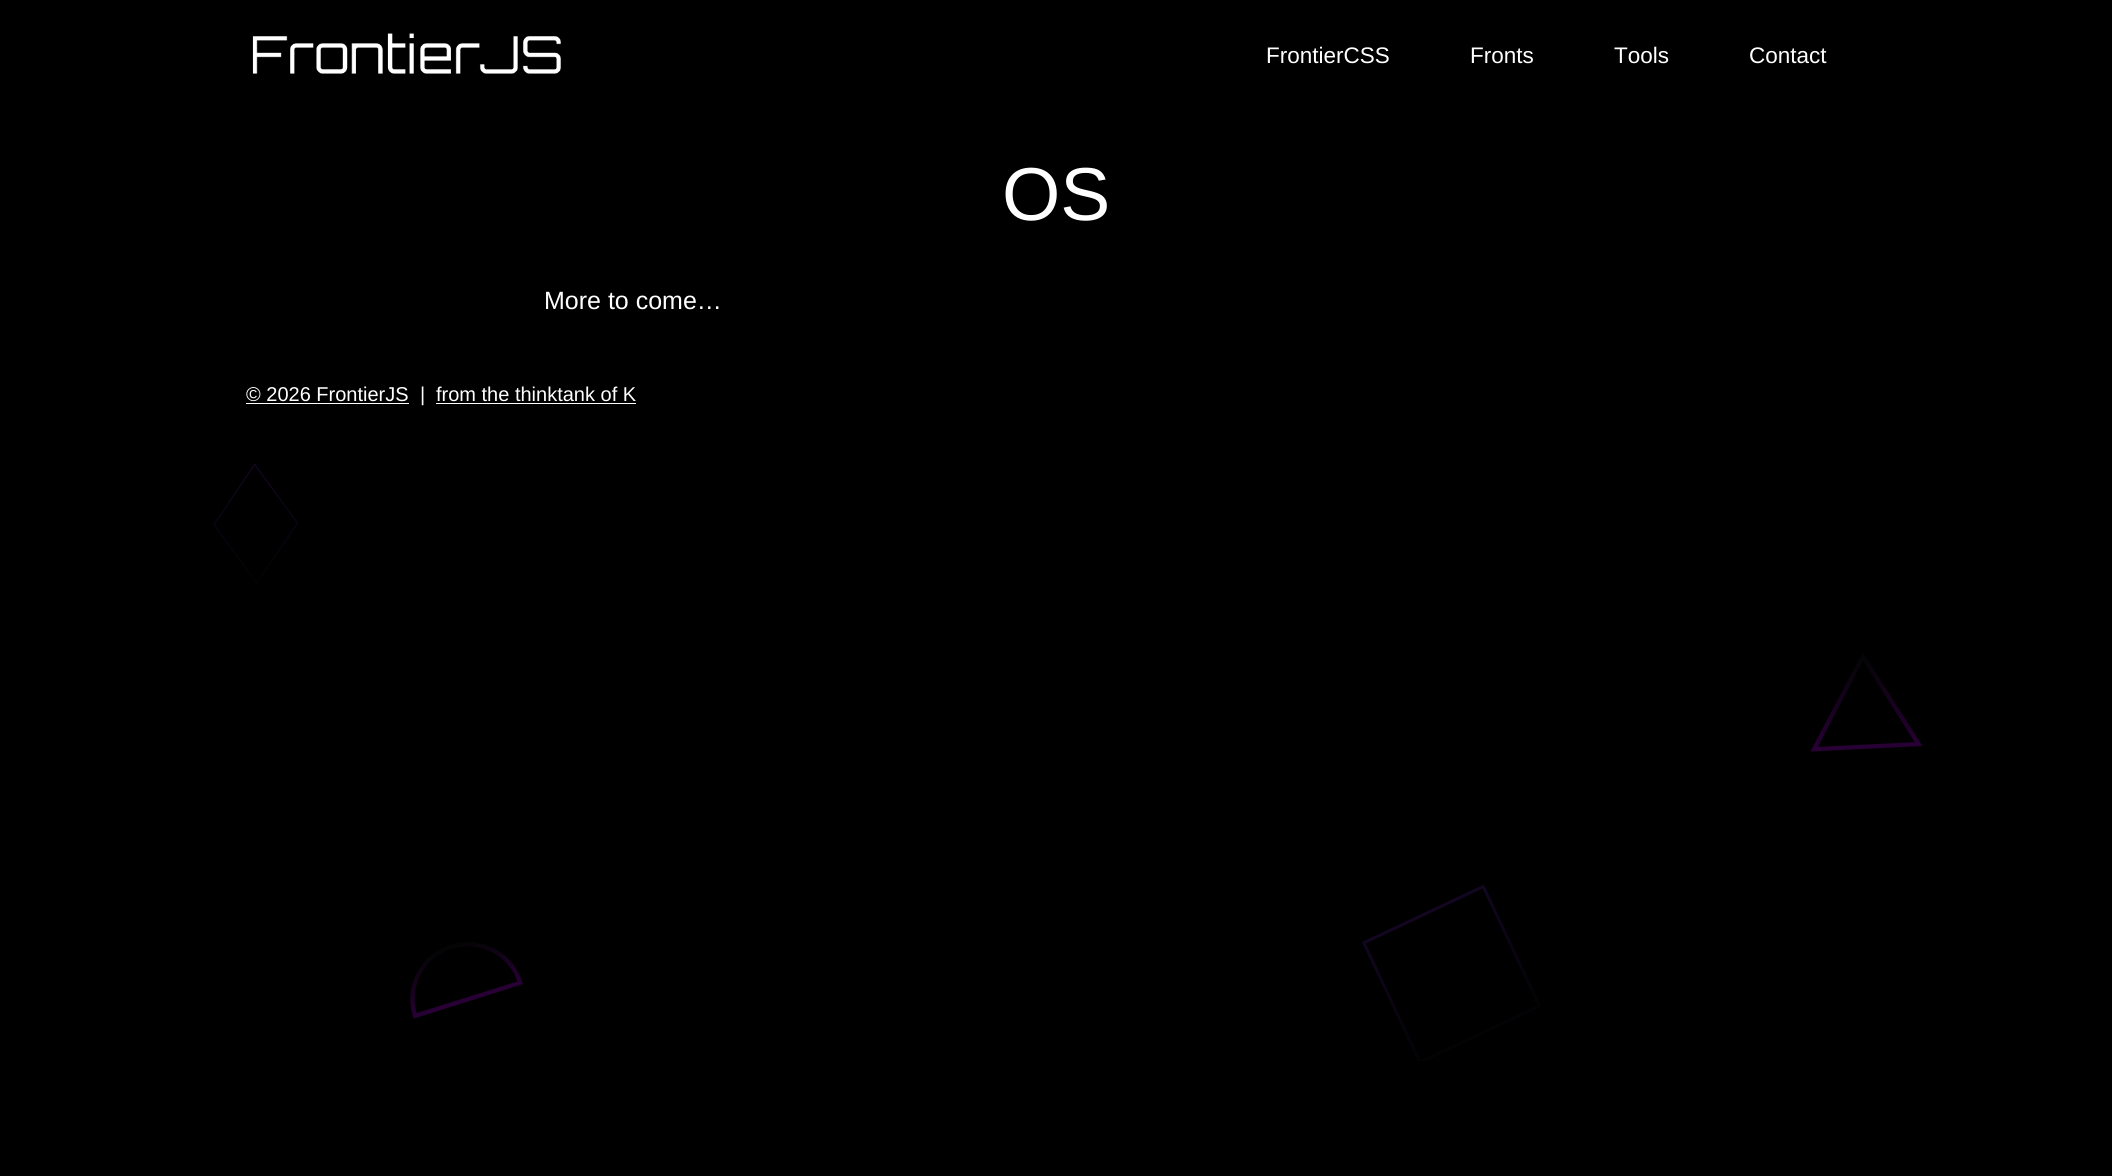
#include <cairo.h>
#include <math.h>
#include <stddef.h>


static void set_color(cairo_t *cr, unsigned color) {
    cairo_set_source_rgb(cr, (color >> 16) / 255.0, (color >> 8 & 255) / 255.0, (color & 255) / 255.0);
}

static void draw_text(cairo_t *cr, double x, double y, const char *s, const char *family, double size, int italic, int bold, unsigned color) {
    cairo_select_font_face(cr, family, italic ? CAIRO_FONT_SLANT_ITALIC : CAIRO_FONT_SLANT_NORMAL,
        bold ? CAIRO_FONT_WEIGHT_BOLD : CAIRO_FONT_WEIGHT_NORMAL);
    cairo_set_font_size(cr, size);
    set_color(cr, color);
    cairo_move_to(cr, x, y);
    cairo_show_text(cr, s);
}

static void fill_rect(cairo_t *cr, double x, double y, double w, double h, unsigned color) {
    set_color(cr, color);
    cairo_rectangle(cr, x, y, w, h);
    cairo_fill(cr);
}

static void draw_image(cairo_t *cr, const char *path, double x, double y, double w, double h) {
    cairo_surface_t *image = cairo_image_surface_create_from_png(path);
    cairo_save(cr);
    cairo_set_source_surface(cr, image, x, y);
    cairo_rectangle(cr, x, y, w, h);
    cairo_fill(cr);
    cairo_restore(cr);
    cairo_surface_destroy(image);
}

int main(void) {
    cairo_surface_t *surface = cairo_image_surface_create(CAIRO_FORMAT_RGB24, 2112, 1176);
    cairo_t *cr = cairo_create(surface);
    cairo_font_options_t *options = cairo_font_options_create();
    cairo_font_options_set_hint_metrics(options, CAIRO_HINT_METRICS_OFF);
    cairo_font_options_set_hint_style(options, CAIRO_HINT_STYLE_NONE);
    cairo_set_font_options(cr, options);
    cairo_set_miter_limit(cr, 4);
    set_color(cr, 0x000000);
    cairo_paint(cr);
    draw_image(cr, "assets/img1.png", 213, 98, 1710, 963);
    fill_rect(cr, 570, 98, 1245, 122, 0x000000);
    draw_image(cr, "assets/img2.png", 252, 33, 309, 41);
    draw_text(cr, 1266, 63, "FrontierCSS", "Liberation Sans", 22.5, 0, 0, 0xFFFFFF);
    draw_text(cr, 1470, 63, "Fronts", "Liberation Sans", 22.5, 0, 0, 0xFFFFFF);
    draw_text(cr, 1614, 63, "Tools", "Liberation Sans", 22.5, 0, 0, 0xFFFFFF);
    draw_text(cr, 1749, 63, "Contact", "Liberation Sans", 22.5, 0, 0, 0xFFFFFF);
    draw_text(cr, 1002, 220, "OS", "Liberation Sans", 75, 0, 0, 0xFFFFFF);
    draw_text(cr, 544, 309, "More to come…", "Liberation Sans", 25, 0, 0, 0xFFFFFF);
    draw_text(cr, 246, 401, "© 2026 FrontierJS", "Liberation Sans", 20, 0, 0, 0xFFFFFF);
    fill_rect(cr, 246, 403, 163, 1, 0xFFFFFF);
    draw_text(cr, 420, 401, "|", "Liberation Sans", 20, 0, 0, 0xFFFFFF);
    draw_text(cr, 436, 401, "from the thinktank of K", "Liberation Sans", 20, 0, 0, 0xFFFFFF);
    fill_rect(cr, 436, 403, 200, 1, 0xFFFFFF);
    cairo_surface_write_to_png(surface, "output.png");
    cairo_font_options_destroy(options);
    cairo_destroy(cr);
    cairo_surface_destroy(surface);
    return 0;
}
